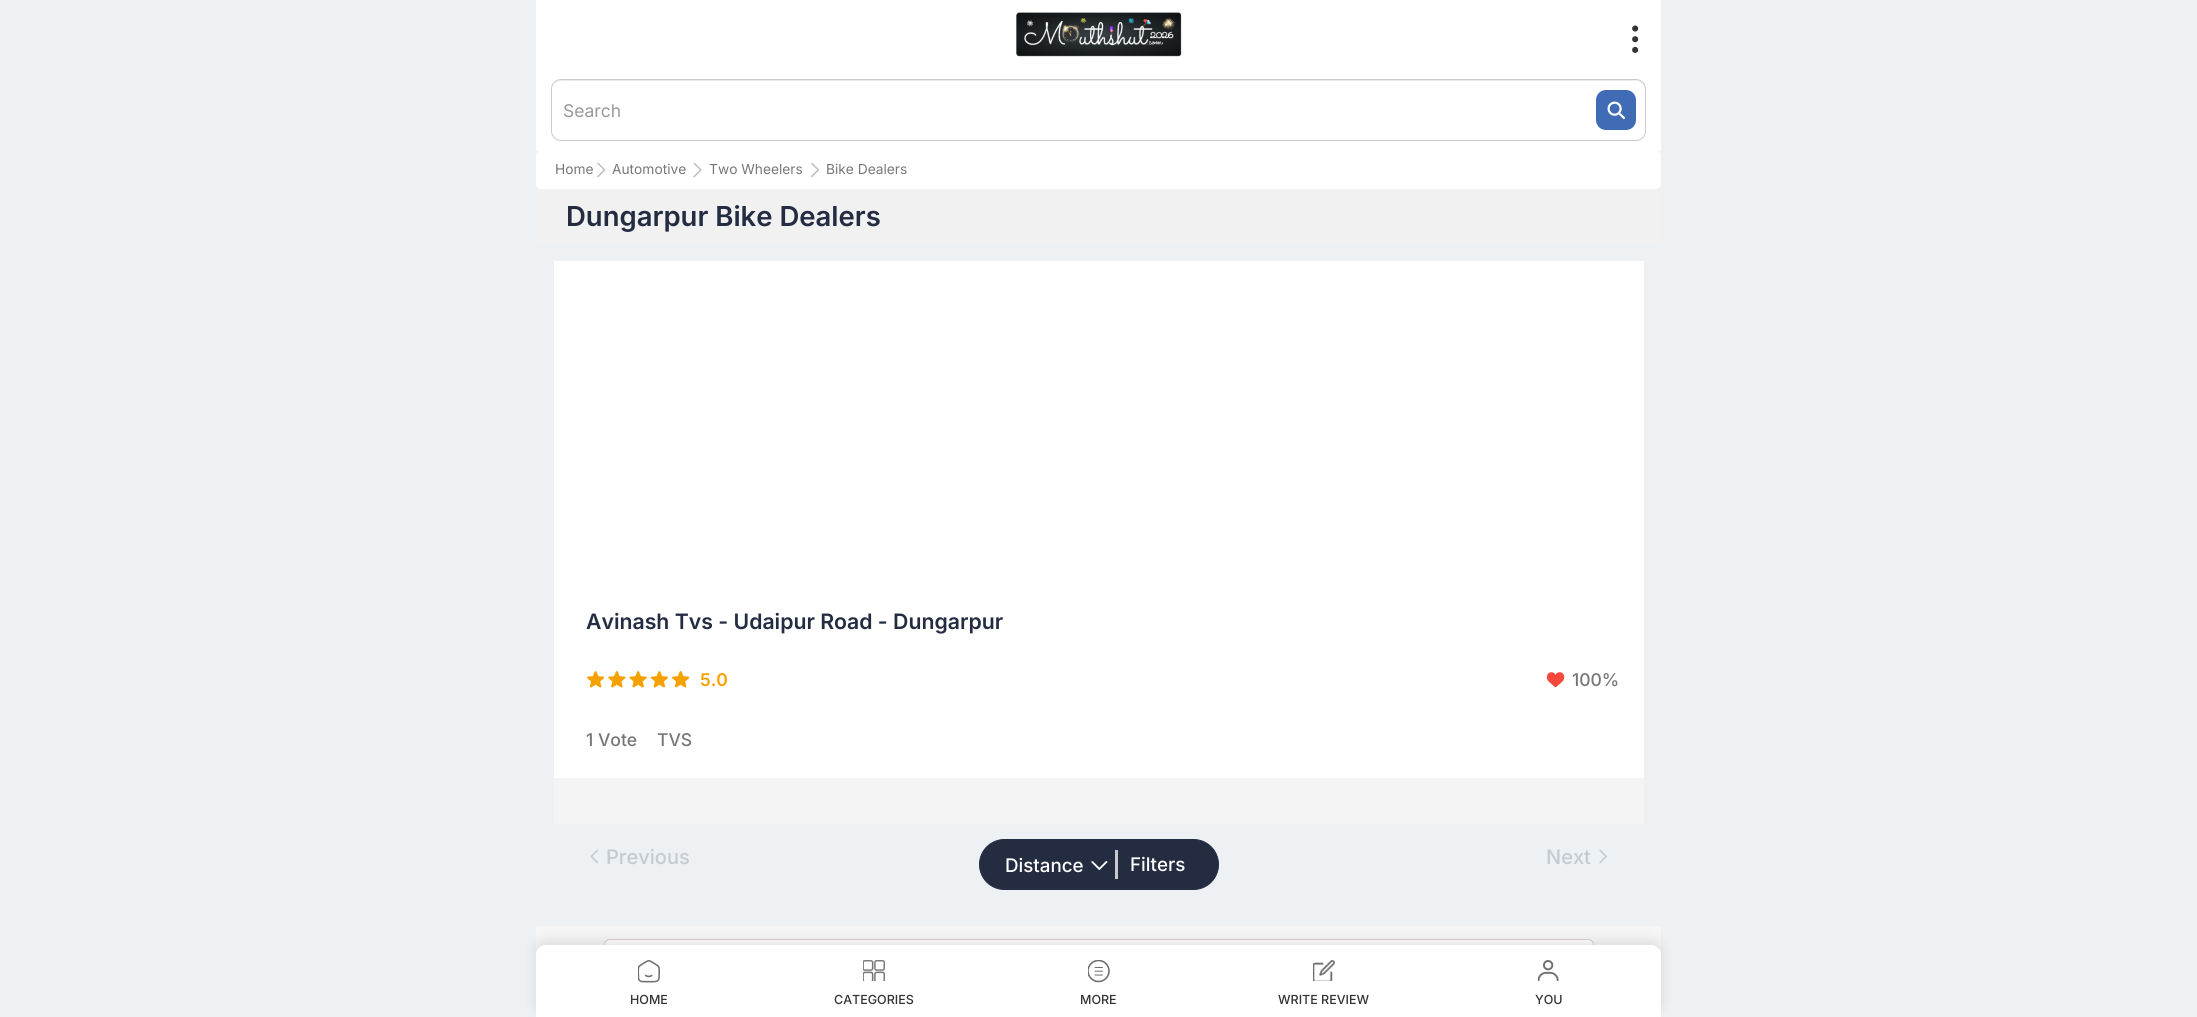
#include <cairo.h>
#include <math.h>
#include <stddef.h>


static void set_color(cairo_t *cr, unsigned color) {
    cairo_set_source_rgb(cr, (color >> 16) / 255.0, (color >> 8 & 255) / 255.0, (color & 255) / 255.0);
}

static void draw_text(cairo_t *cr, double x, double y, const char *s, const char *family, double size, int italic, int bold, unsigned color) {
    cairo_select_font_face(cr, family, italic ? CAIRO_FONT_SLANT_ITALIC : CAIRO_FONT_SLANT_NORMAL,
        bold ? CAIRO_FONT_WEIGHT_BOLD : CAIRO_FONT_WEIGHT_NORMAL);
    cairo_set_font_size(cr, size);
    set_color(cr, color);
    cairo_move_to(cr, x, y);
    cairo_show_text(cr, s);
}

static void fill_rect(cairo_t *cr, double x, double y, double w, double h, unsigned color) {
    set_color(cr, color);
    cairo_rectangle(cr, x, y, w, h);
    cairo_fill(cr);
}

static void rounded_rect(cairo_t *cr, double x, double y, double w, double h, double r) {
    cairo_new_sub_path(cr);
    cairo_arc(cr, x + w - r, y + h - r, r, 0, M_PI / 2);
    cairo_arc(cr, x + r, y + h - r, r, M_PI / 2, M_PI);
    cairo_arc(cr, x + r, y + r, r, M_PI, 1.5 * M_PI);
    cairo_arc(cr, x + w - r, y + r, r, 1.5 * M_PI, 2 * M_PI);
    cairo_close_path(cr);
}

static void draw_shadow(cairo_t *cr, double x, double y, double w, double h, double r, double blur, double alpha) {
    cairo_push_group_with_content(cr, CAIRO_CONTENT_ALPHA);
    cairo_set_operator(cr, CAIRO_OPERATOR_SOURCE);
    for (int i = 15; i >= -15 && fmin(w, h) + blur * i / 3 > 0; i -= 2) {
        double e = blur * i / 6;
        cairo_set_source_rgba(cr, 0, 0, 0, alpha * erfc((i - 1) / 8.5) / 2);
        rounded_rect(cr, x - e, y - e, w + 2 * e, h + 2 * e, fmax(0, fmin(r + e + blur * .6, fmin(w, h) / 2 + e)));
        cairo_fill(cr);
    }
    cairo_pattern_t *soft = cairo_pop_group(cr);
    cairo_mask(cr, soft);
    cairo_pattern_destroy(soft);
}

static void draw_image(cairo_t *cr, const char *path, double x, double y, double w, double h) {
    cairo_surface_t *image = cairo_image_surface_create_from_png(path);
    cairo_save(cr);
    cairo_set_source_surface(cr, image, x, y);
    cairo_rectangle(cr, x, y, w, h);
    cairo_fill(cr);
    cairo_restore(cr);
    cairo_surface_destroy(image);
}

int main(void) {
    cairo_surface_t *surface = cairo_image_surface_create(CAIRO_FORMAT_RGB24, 2197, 1017);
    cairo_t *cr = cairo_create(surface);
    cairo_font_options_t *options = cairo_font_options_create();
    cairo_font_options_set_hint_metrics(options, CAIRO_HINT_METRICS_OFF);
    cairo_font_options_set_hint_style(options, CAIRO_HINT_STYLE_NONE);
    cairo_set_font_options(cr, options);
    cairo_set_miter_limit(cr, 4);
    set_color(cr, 0xEDF1F4);
    cairo_paint(cr);
    fill_rect(cr, 536, 0, 1125, 151, 0xFFFFFF);
    draw_image(cr, "assets/img1.png", 1016, 12, 166, 45);
    draw_image(cr, "assets/img2.png", 1632, 25, 7, 28);
    set_color(cr, 0xECECEC);
    cairo_new_path(cr);
    cairo_move_to(cr, 561, 81);
    cairo_line_to(cr, 1636, 81);
    cairo_curve_to(cr, 1641, 81, 1645, 85, 1645, 90);
    cairo_line_to(cr, 1645, 89);
    cairo_curve_to(cr, 1645, 84, 1641, 80, 1636, 80);
    cairo_line_to(cr, 562, 80);
    cairo_curve_to(cr, 559, 80, 557, 81, 555, 83);
    cairo_curve_to(cr, 557, 82, 559, 81, 561, 81);
    cairo_close_path(cr);
    cairo_fill(cr);
    rounded_rect(cr, 551.5, 79.5, 1094, 61, 9.5);
    set_color(cr, 0xCACACA);
    cairo_set_line_width(cr, 1);
    cairo_stroke(cr);
    draw_text(cr, 563, 117, "Search", "Inter", 17.5, 0, 0, 0x999999);
    draw_image(cr, "assets/img3.png", 1596, 90, 40, 40);
    set_color(cr, 0xFFFFFF);
    rounded_rect(cr, 536, 151, 1125, 38, 5);
    cairo_fill(cr);
    draw_text(cr, 555, 174, "Home", "Inter", 13.75, 0, 0, 0x777777);
    draw_image(cr, "assets/img4.png", 597, 163, 9, 15);
    draw_text(cr, 612, 174, "Automotive", "Inter", 13.75, 0, 0, 0x777777);
    draw_image(cr, "assets/img5.png", 693, 163, 9, 15);
    draw_text(cr, 709, 174, "Two Wheelers", "Inter", 13.75, 0, 0, 0x777777);
    draw_image(cr, "assets/img6.png", 810, 163, 9, 15);
    draw_text(cr, 826, 174, "Bike Dealers", "Inter", 13.75, 0, 0, 0x777777);
    fill_rect(cr, 536, 189, 1125, 55, 0xF1F1F1);
    draw_text(cr, 566, 226, "Dungarpur Bike Dealers", "Inter SemiBold", 27.5, 0, 0, 0x242C42);
    fill_rect(cr, 554, 261, 1090, 517, 0xFFFFFF);
    draw_text(cr, 586, 629, "Avinash Tvs - Udaipur Road - Dungarpur", "Inter SemiBold", 21.25, 0, 0, 0x242C42);
    draw_image(cr, "assets/img7.png", 587, 671, 18, 17);
    draw_image(cr, "assets/img8.png", 608, 671, 18, 17);
    draw_image(cr, "assets/img9.png", 629, 671, 18, 17);
    draw_image(cr, "assets/img10.png", 650, 671, 18, 17);
    draw_image(cr, "assets/img7.png", 672, 671, 18, 17);
    draw_text(cr, 700, 686, "5.0", "Inter SemiBold", 17.5, 0, 0, 0xF5A100);
    draw_image(cr, "assets/img11.png", 1546, 672, 19, 16);
    draw_text(cr, 1572, 686, "100%", "Inter Medium", 17.5, 0, 0, 0x777777);
    draw_text(cr, 586, 746, "1 Vote", "Inter Medium", 17.5, 0, 0, 0x777777);
    draw_text(cr, 657, 746, "TVS", "Inter Medium", 17.5, 0, 0, 0x777777);
    fill_rect(cr, 554, 778, 1090, 46, 0xF4F4F4);
    draw_image(cr, "assets/img12.png", 590, 849, 8, 15);
    draw_text(cr, 606, 864, "Previous", "Inter Medium", 20, 0, 0, 0xC5CAD0);
    draw_text(cr, 1546, 864, "Next", "Inter Medium", 20, 0, 0, 0xC5CAD0);
    draw_image(cr, "assets/img13.png", 1599, 849, 8, 15);
    set_color(cr, 0x242C42);
    rounded_rect(cr, 979.5, 839.5, 239, 50, 25);
    cairo_fill_preserve(cr);
    cairo_stroke(cr);
    fill_rect(cr, 1115, 850, 3, 29, 0xCACACA);
    draw_text(cr, 1005, 872, "Distance", "Inter Medium", 18.75, 0, 0, 0xFFFFFF);
    draw_image(cr, "assets/img14.png", 1091, 861, 17, 9);
    draw_text(cr, 1130, 871, "Filters", "Inter Medium", 18.75, 0, 0, 0xFFFFFF);
    fill_rect(cr, 536, 926, 1125, 29, 0xF6F6F6);
    set_color(cr, 0xFFFFFF);
    rounded_rect(cr, 604.5, 939.5, 989, 55, 5.5);
    cairo_fill_preserve(cr);
    set_color(cr, 0xD9D0D0);
    cairo_stroke(cr);
    set_color(cr, 0x000000);
    draw_shadow(cr, 536, 940, 1125, 73, 10, 6, 0.1);
    set_color(cr, 0xFFFFFF);
    cairo_new_path(cr);
    cairo_move_to(cr, 546, 945);
    cairo_line_to(cr, 1651, 945);
    cairo_curve_to(cr, 1656.5, 945, 1661, 949.5, 1661, 955);
    cairo_line_to(cr, 1661, 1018);
    cairo_line_to(cr, 536, 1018);
    cairo_line_to(cr, 536, 955);
    cairo_curve_to(cr, 536, 949.5, 540.5, 945, 546, 945);
    cairo_close_path(cr);
    cairo_fill(cr);
    draw_image(cr, "assets/img15.png", 638, 960, 22, 23);
    draw_text(cr, 630, 1004, "HOME", "Inter Medium", 12.5, 0, 0, 0x333333);
    draw_image(cr, "assets/img16.png", 863, 960, 22, 21);
    draw_text(cr, 834, 1004, "CATEGORIES", "Inter Medium", 12.5, 0, 0, 0x333333);
    draw_image(cr, "assets/img17.png", 1088, 960, 22, 23);
    draw_text(cr, 1080, 1004, "MORE", "Inter Medium", 12.5, 0, 0, 0x333333);
    draw_image(cr, "assets/img18.png", 1313, 960, 22, 21);
    draw_text(cr, 1278, 1004, "WRITE REVIEW", "Inter Medium", 12.5, 0, 0, 0x333333);
    draw_image(cr, "assets/img19.png", 1538, 960, 21, 21);
    draw_text(cr, 1535, 1004, "YOU", "Inter Medium", 12.5, 0, 0, 0x333333);
    cairo_surface_write_to_png(surface, "output.png");
    cairo_font_options_destroy(options);
    cairo_destroy(cr);
    cairo_surface_destroy(surface);
    return 0;
}
